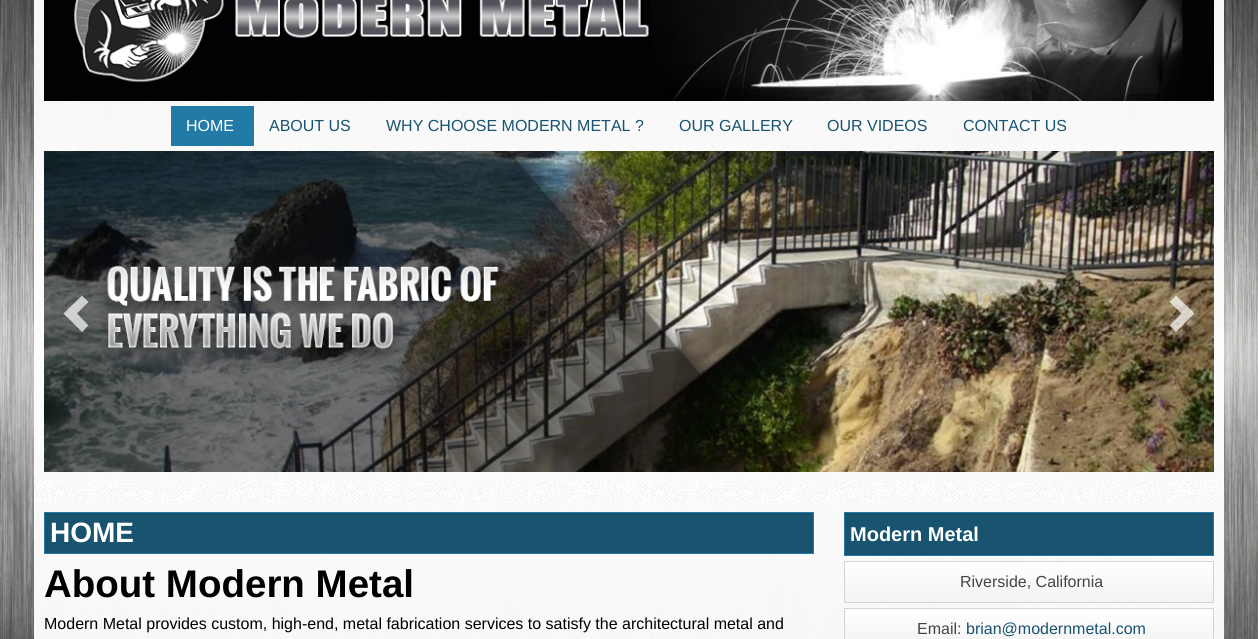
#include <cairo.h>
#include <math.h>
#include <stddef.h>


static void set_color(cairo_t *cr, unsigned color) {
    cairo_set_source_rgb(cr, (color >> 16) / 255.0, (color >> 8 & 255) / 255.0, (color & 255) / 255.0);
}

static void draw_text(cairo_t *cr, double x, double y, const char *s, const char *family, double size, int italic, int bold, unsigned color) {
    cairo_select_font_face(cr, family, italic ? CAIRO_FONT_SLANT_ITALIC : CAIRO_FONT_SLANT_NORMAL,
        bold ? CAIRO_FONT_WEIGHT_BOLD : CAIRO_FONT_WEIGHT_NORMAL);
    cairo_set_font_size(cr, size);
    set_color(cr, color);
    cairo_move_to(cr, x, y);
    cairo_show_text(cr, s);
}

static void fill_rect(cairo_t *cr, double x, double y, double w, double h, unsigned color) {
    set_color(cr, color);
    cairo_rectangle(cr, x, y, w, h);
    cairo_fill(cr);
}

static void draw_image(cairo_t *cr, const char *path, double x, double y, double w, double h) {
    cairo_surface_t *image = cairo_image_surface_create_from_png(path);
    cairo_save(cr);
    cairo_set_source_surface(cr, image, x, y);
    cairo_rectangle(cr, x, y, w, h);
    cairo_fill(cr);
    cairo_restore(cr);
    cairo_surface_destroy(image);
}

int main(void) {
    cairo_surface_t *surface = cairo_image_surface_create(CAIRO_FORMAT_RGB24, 1258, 639);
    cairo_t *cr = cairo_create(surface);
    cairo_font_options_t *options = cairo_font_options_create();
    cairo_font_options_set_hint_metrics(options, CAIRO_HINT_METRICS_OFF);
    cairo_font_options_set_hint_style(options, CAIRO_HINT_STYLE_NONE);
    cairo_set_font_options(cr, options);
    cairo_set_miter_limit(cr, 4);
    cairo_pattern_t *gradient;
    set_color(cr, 0xFFFFFF);
    cairo_paint(cr);
    draw_image(cr, "assets/img1.png", 0, 0, 1258, 639);
    cairo_set_source_rgba(cr, 1, 1, 1, 0.95);
    cairo_rectangle(cr, 34, 0, 1190, 482);
    cairo_fill(cr);
    draw_image(cr, "assets/img2.png", 44, 0, 1170, 101);
    fill_rect(cr, 558, 101, 498, 27, 0xF9F9F9);
    fill_rect(cr, 171, 106, 83, 40, 0x217BA6);
    draw_text(cr, 186, 131, "HOME", "Liberation Sans", 16, 0, 0, 0xFFFFFF);
    draw_text(cr, 269, 131, "ABOUT US", "Liberation Sans", 16, 0, 0, 0x18536F);
    draw_text(cr, 386, 131, "WHY CHOOSE MODERN METAL ?", "Liberation Sans", 16, 0, 0, 0x18536F);
    draw_text(cr, 679, 131, "OUR GALLERY", "Liberation Sans", 16, 0, 0, 0x18536F);
    draw_text(cr, 827, 131, "OUR VIDEOS", "Liberation Sans", 16, 0, 0, 0x18536F);
    draw_text(cr, 963, 131, "CONTACT US", "Liberation Sans", 16, 0, 0, 0x18536F);
    draw_image(cr, "assets/img3.png", 44, 151, 1170, 321);
    cairo_set_source_rgba(cr, 1, 1, 1, 0.7);
    cairo_new_path(cr);
    cairo_move_to(cr, 63.5, 313.5);
    cairo_line_to(cr, 82, 295.5);
    cairo_line_to(cr, 88.5, 302);
    cairo_line_to(cr, 77, 313.5);
    cairo_line_to(cr, 88.5, 325.5);
    cairo_line_to(cr, 82, 332);
    cairo_close_path(cr);
    cairo_fill(cr);
    cairo_new_path(cr);
    cairo_move_to(cr, 1169.5, 325.5);
    cairo_line_to(cr, 1176, 332);
    cairo_line_to(cr, 1194.5, 313.5);
    cairo_line_to(cr, 1176, 295.5);
    cairo_line_to(cr, 1169.5, 302);
    cairo_line_to(cr, 1181.5, 313.5);
    cairo_close_path(cr);
    cairo_fill(cr);
    draw_image(cr, "assets/img4.png", 34, 482, 1190, 20);
    draw_image(cr, "assets/img5.png", 44, 482, 1170, 20);
    cairo_set_source_rgba(cr, 1, 1, 1, 0.95);
    cairo_rectangle(cr, 34, 502, 1190, 137);
    cairo_fill(cr);
    set_color(cr, 0x18536F);
    cairo_rectangle(cr, 44.5, 512.5, 769, 41);
    cairo_fill_preserve(cr);
    set_color(cr, 0x217BA6);
    cairo_set_line_width(cr, 1);
    cairo_stroke(cr);
    draw_text(cr, 50, 542, "HOME", "Liberation Sans", 28, 0, 1, 0xFFFFFF);
    draw_text(cr, 44, 597, "About Modern Metal", "Liberation Sans", 38.5, 0, 1, 0x000000);
    draw_text(cr, 44, 629, "Modern Metal provides custom, high-end, metal fabrication services to satisfy the architectural metal and", "Liberation Sans", 16, 0, 0, 0x000000);
    set_color(cr, 0x18536F);
    cairo_rectangle(cr, 844.5, 512.5, 369, 43);
    cairo_fill_preserve(cr);
    set_color(cr, 0x217BA6);
    cairo_stroke(cr);
    draw_text(cr, 850, 541, "Modern Metal", "Liberation Sans", 20, 0, 1, 0xFFFFFF);
    gradient = cairo_pattern_create_linear(1029, 602, 1029, 562);
    cairo_pattern_add_color_stop_rgba(gradient, 0, 0.949, 0.949, 0.949, 1);
    cairo_pattern_add_color_stop_rgba(gradient, 1, 1, 1, 1, 1);
    cairo_set_source(cr, gradient);
    cairo_pattern_destroy(gradient);
    cairo_rectangle(cr, 845, 562, 368, 40);
    cairo_fill(cr);
    cairo_rectangle(cr, 844.5, 561.5, 369, 41);
    set_color(cr, 0xD3D3D3);
    cairo_stroke(cr);
    draw_text(cr, 960, 587, "Riverside, California", "Liberation Sans", 16, 0, 0, 0x444444);
    gradient = cairo_pattern_create_linear(1029, 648, 1029, 609);
    cairo_pattern_add_color_stop_rgba(gradient, 0, 0.949, 0.949, 0.949, 1);
    cairo_pattern_add_color_stop_rgba(gradient, 1, 1, 1, 1, 1);
    cairo_set_source(cr, gradient);
    cairo_pattern_destroy(gradient);
    cairo_rectangle(cr, 845, 609, 368, 30);
    cairo_fill(cr);
    cairo_rectangle(cr, 844.5, 608.5, 369, 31);
    set_color(cr, 0xD3D3D3);
    cairo_stroke(cr);
    draw_text(cr, 917, 634, "Email:", "Liberation Sans", 16, 0, 0, 0x444444);
    draw_text(cr, 966, 634, "brian@modernmetal.com", "Liberation Sans", 16, 0, 0, 0x18536F);
    cairo_surface_write_to_png(surface, "output.png");
    cairo_font_options_destroy(options);
    cairo_destroy(cr);
    cairo_surface_destroy(surface);
    return 0;
}
